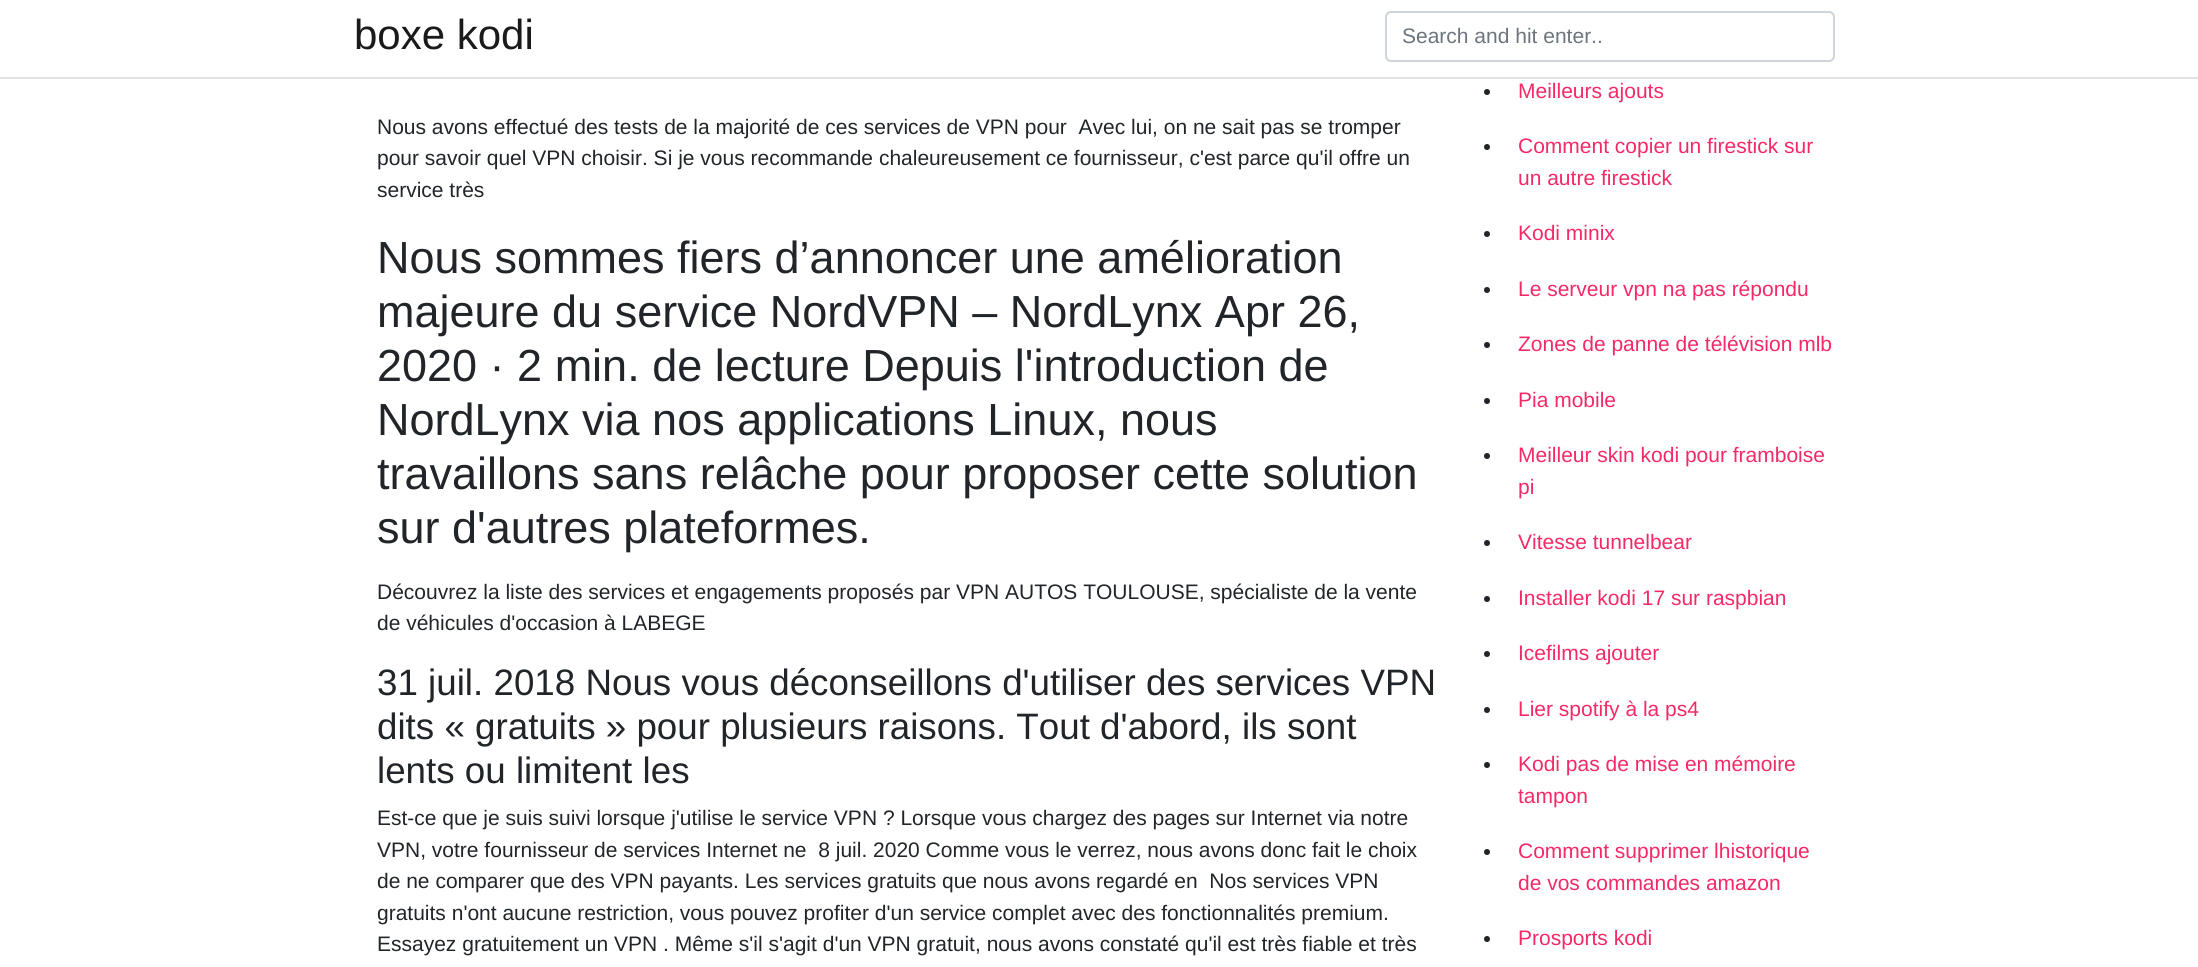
#include <cairo.h>
#include <math.h>
#include <stddef.h>


static void set_color(cairo_t *cr, unsigned color) {
    cairo_set_source_rgb(cr, (color >> 16) / 255.0, (color >> 8 & 255) / 255.0, (color & 255) / 255.0);
}

static void draw_text(cairo_t *cr, double x, double y, const char *s, const char *family, double size, int italic, int bold, unsigned color) {
    cairo_select_font_face(cr, family, italic ? CAIRO_FONT_SLANT_ITALIC : CAIRO_FONT_SLANT_NORMAL,
        bold ? CAIRO_FONT_WEIGHT_BOLD : CAIRO_FONT_WEIGHT_NORMAL);
    cairo_set_font_size(cr, size);
    set_color(cr, color);
    cairo_move_to(cr, x, y);
    cairo_show_text(cr, s);
}

static void fill_rect(cairo_t *cr, double x, double y, double w, double h, unsigned color) {
    set_color(cr, color);
    cairo_rectangle(cr, x, y, w, h);
    cairo_fill(cr);
}

static void rounded_rect(cairo_t *cr, double x, double y, double w, double h, double r) {
    cairo_new_sub_path(cr);
    cairo_arc(cr, x + w - r, y + h - r, r, 0, M_PI / 2);
    cairo_arc(cr, x + r, y + h - r, r, M_PI / 2, M_PI);
    cairo_arc(cr, x + r, y + r, r, M_PI, 1.5 * M_PI);
    cairo_arc(cr, x + w - r, y + r, r, 1.5 * M_PI, 2 * M_PI);
    cairo_close_path(cr);
}

int main(void) {
    cairo_surface_t *surface = cairo_image_surface_create(CAIRO_FORMAT_RGB24, 2198, 967);
    cairo_t *cr = cairo_create(surface);
    cairo_font_options_t *options = cairo_font_options_create();
    cairo_font_options_set_hint_metrics(options, CAIRO_HINT_METRICS_OFF);
    cairo_font_options_set_hint_style(options, CAIRO_HINT_STYLE_NONE);
    cairo_set_font_options(cr, options);
    cairo_set_miter_limit(cr, 4);
    set_color(cr, 0xFFFFFF);
    cairo_paint(cr);
    fill_rect(cr, 0, 77, 2198, 2, 0xE1E2E3);
    draw_text(cr, 354, 49, "boxe kodi", "Liberation Sans", 42, 0, 0, 0x1A1A1A);
    rounded_rect(cr, 1386, 12, 448, 49, 5);
    set_color(cr, 0xCED4DA);
    cairo_stroke(cr);
    draw_text(cr, 1402, 43, "Search and hit enter..", "Liberation Sans", 21, 0, 0, 0x6C757D);
    draw_text(cr, 377, 134, "Nous avons effectué des tests de la majorité de ces services de VPN pour  Avec lui, on ne sait pas se tromper", "Liberation Sans", 21, 0, 0, 0x212529);
    draw_text(cr, 377, 165, "pour savoir quel VPN choisir. Si je vous recommande chaleureusement ce fournisseur, c'est parce qu'il offre un", "Liberation Sans", 21, 0, 0, 0x212529);
    draw_text(cr, 377, 197, "service très", "Liberation Sans", 21, 0, 0, 0x212529);
    draw_text(cr, 377, 273, "Nous sommes fiers d’annoncer une amélioration", "Liberation Sans", 45, 0, 0, 0x212529);
    draw_text(cr, 377, 327, "majeure du service NordVPN – NordLynx Apr 26,", "Liberation Sans", 45, 0, 0, 0x212529);
    draw_text(cr, 377, 381, "2020 · 2 min. de lecture Depuis l'introduction de", "Liberation Sans", 45, 0, 0, 0x212529);
    draw_text(cr, 377, 435, "NordLynx via nos applications Linux, nous", "Liberation Sans", 45, 0, 0, 0x212529);
    draw_text(cr, 377, 489, "travaillons sans relâche pour proposer cette solution", "Liberation Sans", 45, 0, 0, 0x212529);
    draw_text(cr, 377, 543, "sur d'autres plateformes.", "Liberation Sans", 45, 0, 0, 0x212529);
    draw_text(cr, 377, 599, "Découvrez la liste des services et engagements proposés par VPN AUTOS TOULOUSE, spécialiste de la vente", "Liberation Sans", 21, 0, 0, 0x212529);
    draw_text(cr, 377, 630, "de véhicules d'occasion à LABEGE", "Liberation Sans", 21, 0, 0, 0x212529);
    draw_text(cr, 377, 695, "31 juil. 2018 Nous vous déconseillons d'utiliser des services VPN", "Liberation Sans", 36.75, 0, 0, 0x212529);
    draw_text(cr, 377, 739, "dits « gratuits » pour plusieurs raisons. Tout d'abord, ils sont", "Liberation Sans", 36.75, 0, 0, 0x212529);
    draw_text(cr, 377, 783, "lents ou limitent les", "Liberation Sans", 36.75, 0, 0, 0x212529);
    draw_text(cr, 377, 825, "Est-ce que je suis suivi lorsque j'utilise le service VPN ? Lorsque vous chargez des pages sur Internet via notre", "Liberation Sans", 21, 0, 0, 0x212529);
    draw_text(cr, 377, 857, "VPN, votre fournisseur de services Internet ne  8 juil. 2020 Comme vous le verrez, nous avons donc fait le choix", "Liberation Sans", 21, 0, 0, 0x212529);
    draw_text(cr, 377, 888, "de ne comparer que des VPN payants. Les services gratuits que nous avons regardé en  Nos services VPN", "Liberation Sans", 21, 0, 0, 0x212529);
    draw_text(cr, 377, 920, "gratuits n'ont aucune restriction, vous pouvez profiter d'un service complet avec des fonctionnalités premium.", "Liberation Sans", 21, 0, 0, 0x212529);
    draw_text(cr, 377, 951, "Essayez gratuitement un VPN . Même s'il s'agit d'un VPN gratuit, nous avons constaté qu'il est très fiable et très", "Liberation Sans", 21, 0, 0, 0x212529);
    cairo_new_path(cr);
    cairo_arc(cr, 1487, 92, 3, 0, 2 * M_PI);
    cairo_fill(cr);
    draw_text(cr, 1518, 98, "Meilleurs ajouts", "Liberation Sans", 21, 0, 0, 0xF42966);
    set_color(cr, 0x212529);
    cairo_new_path(cr);
    cairo_arc(cr, 1487, 147, 3, 0, 2 * M_PI);
    cairo_fill(cr);
    draw_text(cr, 1518, 153, "Comment copier un firestick sur", "Liberation Sans", 21, 0, 0, 0xF42966);
    draw_text(cr, 1518, 185, "un autre firestick", "Liberation Sans", 21, 0, 0, 0xF42966);
    set_color(cr, 0x212529);
    cairo_new_path(cr);
    cairo_arc(cr, 1487, 234, 3, 0, 2 * M_PI);
    cairo_fill(cr);
    draw_text(cr, 1518, 240, "Kodi minix", "Liberation Sans", 21, 0, 0, 0xF42966);
    set_color(cr, 0x212529);
    cairo_new_path(cr);
    cairo_arc(cr, 1487, 290, 3, 0, 2 * M_PI);
    cairo_fill(cr);
    draw_text(cr, 1518, 296, "Le serveur vpn na pas répondu", "Liberation Sans", 21, 0, 0, 0xF42966);
    set_color(cr, 0x212529);
    cairo_new_path(cr);
    cairo_arc(cr, 1487, 345, 3, 0, 2 * M_PI);
    cairo_fill(cr);
    draw_text(cr, 1518, 351, "Zones de panne de télévision mlb", "Liberation Sans", 21, 0, 0, 0xF42966);
    set_color(cr, 0x212529);
    cairo_new_path(cr);
    cairo_arc(cr, 1487, 401, 3, 0, 2 * M_PI);
    cairo_fill(cr);
    draw_text(cr, 1518, 407, "Pia mobile", "Liberation Sans", 21, 0, 0, 0xF42966);
    set_color(cr, 0x212529);
    cairo_new_path(cr);
    cairo_arc(cr, 1487, 456, 3, 0, 2 * M_PI);
    cairo_fill(cr);
    draw_text(cr, 1518, 462, "Meilleur skin kodi pour framboise", "Liberation Sans", 21, 0, 0, 0xF42966);
    draw_text(cr, 1518, 494, "pi", "Liberation Sans", 21, 0, 0, 0xF42966);
    set_color(cr, 0x212529);
    cairo_new_path(cr);
    cairo_arc(cr, 1487, 543, 3, 0, 2 * M_PI);
    cairo_fill(cr);
    draw_text(cr, 1518, 549, "Vitesse tunnelbear", "Liberation Sans", 21, 0, 0, 0xF42966);
    set_color(cr, 0x212529);
    cairo_new_path(cr);
    cairo_arc(cr, 1487, 599, 3, 0, 2 * M_PI);
    cairo_fill(cr);
    draw_text(cr, 1518, 605, "Installer kodi 17 sur raspbian", "Liberation Sans", 21, 0, 0, 0xF42966);
    set_color(cr, 0x212529);
    cairo_new_path(cr);
    cairo_arc(cr, 1487, 654, 3, 0, 2 * M_PI);
    cairo_fill(cr);
    draw_text(cr, 1518, 660, "Icefilms ajouter", "Liberation Sans", 21, 0, 0, 0xF42966);
    set_color(cr, 0x212529);
    cairo_new_path(cr);
    cairo_arc(cr, 1487, 710, 3, 0, 2 * M_PI);
    cairo_fill(cr);
    draw_text(cr, 1518, 716, "Lier spotify à la ps4", "Liberation Sans", 21, 0, 0, 0xF42966);
    set_color(cr, 0x212529);
    cairo_new_path(cr);
    cairo_arc(cr, 1487, 765, 3, 0, 2 * M_PI);
    cairo_fill(cr);
    draw_text(cr, 1518, 771, "Kodi pas de mise en mémoire", "Liberation Sans", 21, 0, 0, 0xF42966);
    draw_text(cr, 1518, 803, "tampon", "Liberation Sans", 21, 0, 0, 0xF42966);
    set_color(cr, 0x212529);
    cairo_new_path(cr);
    cairo_arc(cr, 1487, 852, 3, 0, 2 * M_PI);
    cairo_fill(cr);
    draw_text(cr, 1518, 858, "Comment supprimer lhistorique", "Liberation Sans", 21, 0, 0, 0xF42966);
    draw_text(cr, 1518, 890, "de vos commandes amazon", "Liberation Sans", 21, 0, 0, 0xF42966);
    set_color(cr, 0x212529);
    cairo_new_path(cr);
    cairo_arc(cr, 1487, 939, 3, 0, 2 * M_PI);
    cairo_fill(cr);
    draw_text(cr, 1518, 945, "Prosports kodi", "Liberation Sans", 21, 0, 0, 0xF42966);
    cairo_surface_write_to_png(surface, "output.png");
    cairo_font_options_destroy(options);
    cairo_destroy(cr);
    cairo_surface_destroy(surface);
    return 0;
}
